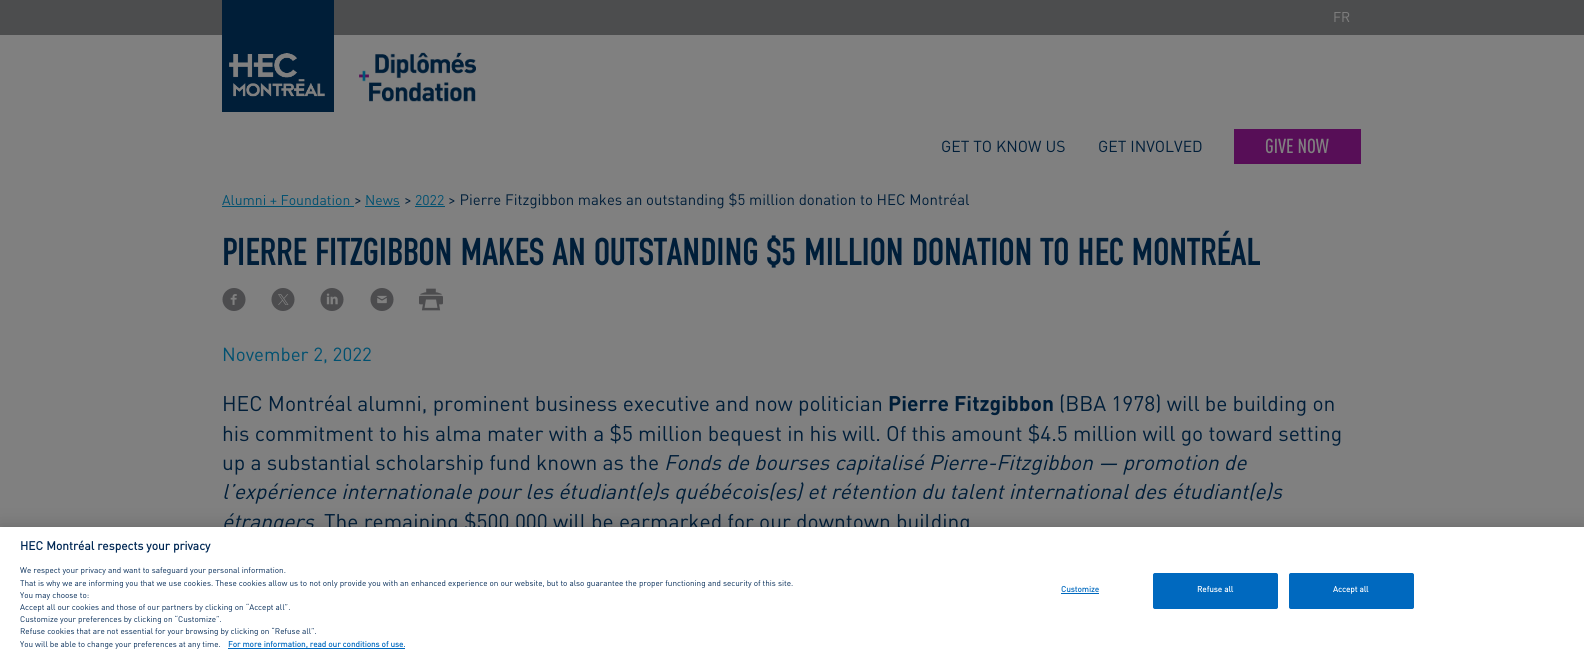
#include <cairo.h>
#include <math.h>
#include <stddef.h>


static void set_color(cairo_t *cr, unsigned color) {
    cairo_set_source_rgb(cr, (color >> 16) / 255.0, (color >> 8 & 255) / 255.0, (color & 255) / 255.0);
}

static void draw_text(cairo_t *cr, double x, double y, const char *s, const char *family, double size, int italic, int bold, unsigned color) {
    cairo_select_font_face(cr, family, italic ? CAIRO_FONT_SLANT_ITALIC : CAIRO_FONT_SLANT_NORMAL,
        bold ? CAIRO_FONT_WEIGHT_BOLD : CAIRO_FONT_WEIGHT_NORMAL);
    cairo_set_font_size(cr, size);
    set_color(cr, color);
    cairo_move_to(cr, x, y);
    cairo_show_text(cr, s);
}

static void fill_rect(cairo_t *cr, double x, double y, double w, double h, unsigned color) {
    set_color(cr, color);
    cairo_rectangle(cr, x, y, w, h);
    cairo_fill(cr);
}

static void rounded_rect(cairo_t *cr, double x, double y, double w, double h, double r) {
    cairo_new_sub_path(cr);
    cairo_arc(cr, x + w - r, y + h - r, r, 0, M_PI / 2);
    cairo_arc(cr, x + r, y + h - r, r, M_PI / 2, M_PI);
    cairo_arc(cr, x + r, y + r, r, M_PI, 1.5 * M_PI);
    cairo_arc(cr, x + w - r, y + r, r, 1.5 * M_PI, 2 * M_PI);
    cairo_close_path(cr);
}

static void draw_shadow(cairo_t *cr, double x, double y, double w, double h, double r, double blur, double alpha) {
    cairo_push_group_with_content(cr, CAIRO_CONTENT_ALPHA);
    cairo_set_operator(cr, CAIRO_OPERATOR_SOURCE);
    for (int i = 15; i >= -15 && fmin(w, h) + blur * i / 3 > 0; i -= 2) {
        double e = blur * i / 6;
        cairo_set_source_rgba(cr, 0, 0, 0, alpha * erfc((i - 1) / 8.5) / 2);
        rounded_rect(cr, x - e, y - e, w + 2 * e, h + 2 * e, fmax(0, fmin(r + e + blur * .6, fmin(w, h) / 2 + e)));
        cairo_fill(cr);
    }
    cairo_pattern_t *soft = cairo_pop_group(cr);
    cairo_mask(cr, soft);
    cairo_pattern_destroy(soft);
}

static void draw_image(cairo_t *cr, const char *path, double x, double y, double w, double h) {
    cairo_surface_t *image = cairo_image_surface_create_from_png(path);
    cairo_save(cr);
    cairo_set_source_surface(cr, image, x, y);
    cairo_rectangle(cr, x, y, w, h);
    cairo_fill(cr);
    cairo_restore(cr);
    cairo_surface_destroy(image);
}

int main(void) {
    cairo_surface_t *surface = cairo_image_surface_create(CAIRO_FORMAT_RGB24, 1584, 657);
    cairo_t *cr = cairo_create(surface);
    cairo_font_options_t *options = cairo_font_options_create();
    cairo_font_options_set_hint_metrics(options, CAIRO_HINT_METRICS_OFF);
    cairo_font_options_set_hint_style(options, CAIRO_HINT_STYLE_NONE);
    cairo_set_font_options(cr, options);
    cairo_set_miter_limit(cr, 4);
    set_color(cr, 0x808080);
    cairo_paint(cr);
    fill_rect(cr, 0, 0, 1584, 35, 0x4C4D4E);
    draw_image(cr, "assets/img1.png", 222, 0, 112, 112);
    draw_text(cr, 1333, 22, "FR", "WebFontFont", 14, 0, 0, 0x808080);
    draw_image(cr, "assets/img2.png", 359, 52, 117, 50);
    draw_text(cr, 941, 152, "GET TO KNOW US", "WebFontFont", 15.75, 0, 0, 0x001E39);
    draw_text(cr, 1098, 152, "GET INVOLVED", "WebFontFont", 15.75, 0, 0, 0x001E39);
    fill_rect(cr, 1234, 129, 127, 33, 0x570E57);
    fill_rect(cr, 1234, 162, 127, 2, 0x570D56);
    draw_text(cr, 1265, 153, "GIVE NOW", "WebFontFont Medium", 20, 0, 0, 0x808080);
    draw_text(cr, 222, 205, "Alumni + Foundation", "WebFontFont", 14, 0, 0, 0x005070);
    fill_rect(cr, 222, 206, 132, 1, 0x005070);
    draw_text(cr, 354, 205, ">", "WebFontFont", 15, 0, 0, 0x001E39);
    draw_text(cr, 365, 205, "News", "WebFontFont", 14, 0, 0, 0x005070);
    fill_rect(cr, 365, 206, 35, 1, 0x005070);
    draw_text(cr, 404, 205, ">", "WebFontFont", 15, 0, 0, 0x001E39);
    draw_text(cr, 415, 205, "2022", "WebFontFont", 14, 0, 0, 0x005070);
    fill_rect(cr, 415, 206, 30, 1, 0x005070);
    draw_text(cr, 448, 205, "> Pierre Fitzgibbon makes an outstanding $5 million donation to HEC Montréal", "WebFontFont", 15, 0, 0, 0x001E39);
    draw_text(cr, 222, 265, "PIERRE FITZGIBBON MAKES AN OUTSTANDING $5 MILLION DONATION TO HEC MONTRÉAL", "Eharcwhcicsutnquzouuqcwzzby", 40.7, 0, 0, 0x001E39);
    draw_image(cr, "assets/img3.png", 222, 288, 24, 23);
    draw_image(cr, "assets/img4.png", 271, 288, 24, 23);
    draw_image(cr, "assets/img5.png", 320, 288, 24, 23);
    draw_image(cr, "assets/img6.png", 370, 288, 24, 23);
    draw_image(cr, "assets/img7.png", 419, 288, 24, 23);
    draw_text(cr, 222, 361, "November 2, 2022", "WebFontFont", 18.75, 0, 0, 0x005070);
    draw_text(cr, 222, 411, "HEC Montréal alumni, prominent business executive and now politician", "WebFontFont", 21, 0, 0, 0x001E39);
    draw_text(cr, 888, 411, "Pierre Fitzgibbon", "WebFontFont", 21, 0, 1, 0x001E39);
    draw_text(cr, 1059, 411, "(BBA 1978) will be building on", "WebFontFont", 21, 0, 0, 0x001E39);
    draw_text(cr, 222, 441, "his commitment to his alma mater with a $5 million bequest in his will. Of this amount $4.5 million will go toward setting", "WebFontFont", 21, 0, 0, 0x001E39);
    draw_text(cr, 222, 470, "up a substantial scholarship fund known as the", "WebFontFont", 21, 0, 0, 0x001E39);
    draw_text(cr, 664, 470, "Fonds de bourses capitalisé Pierre-Fitzgibbon — promotion de", "WebFontFont", 21, 1, 0, 0x001E39);
    draw_text(cr, 222, 499, "l’expérience internationale pour les étudiant(e)s québécois(es) et rétention du talent international des étudiant(e)s", "WebFontFont", 21, 1, 0, 0x001E39);
    draw_text(cr, 222, 529, "étrangers", "WebFontFont", 21, 1, 0, 0x001E39);
    draw_text(cr, 324, 529, "The remaining $500,000 will be earmarked for our downtown building", "WebFontFont", 21, 0, 0, 0x001E39);
    set_color(cr, 0x000000);
    draw_shadow(cr, 0, 527, 1584, 130, 0, 9, 0.2);
    fill_rect(cr, 0, 527, 1584, 130, 0xFFFFFF);
    draw_text(cr, 20, 550, "HEC Montréal respects your privacy", "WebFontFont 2", 12, 0, 1, 0x002855);
    draw_text(cr, 20, 573, "We respect your privacy and want to safeguard your personal information.", "WebFontFont", 8.13, 0, 0, 0x002855);
    draw_text(cr, 20, 586, "That is why we are informing you that we use cookies. These cookies allow us to not only provide you with an enhanced experience on our website, but to also guarantee the proper functioning and security of this site.", "WebFontFont", 8.13, 0, 0, 0x002855);
    draw_text(cr, 20, 598, "You may choose to:", "WebFontFont", 8.13, 0, 0, 0x002855);
    draw_text(cr, 20, 610, "Accept all our cookies and those of our partners by clicking on “Accept all”.", "WebFontFont", 8.13, 0, 0, 0x002855);
    draw_text(cr, 20, 622, "Customize your preferences by clicking on “Customize”.", "WebFontFont", 8.13, 0, 0, 0x002855);
    draw_text(cr, 20, 634, "Refuse cookies that are not essential for your browsing by clicking on “Refuse all”.", "WebFontFont", 8.13, 0, 0, 0x002855);
    draw_text(cr, 20, 647, "You will be able to change your preferences at any time.", "WebFontFont", 8.13, 0, 0, 0x002855);
    fill_rect(cr, 228, 648, 177, 1, 0x0069BF);
    draw_text(cr, 228, 647, "For more information, read our conditions of use.", "WebFontFont 2", 8.13, 0, 1, 0x0069BF);
    draw_text(cr, 1061, 592, "Customize", "WebFontFont 2", 8.13, 0, 1, 0x0069BF);
    fill_rect(cr, 1061, 593, 38, 1, 0x0069BF);
    rounded_rect(cr, 1153.5, 573.5, 124, 35, 1.5);
    cairo_fill_preserve(cr);
    cairo_set_line_width(cr, 1);
    cairo_stroke(cr);
    draw_text(cr, 1197, 592, "Refuse all", "WebFontFont 2", 8.13, 0, 1, 0xFFFFFF);
    set_color(cr, 0x0069BF);
    rounded_rect(cr, 1289.5, 573.5, 124, 35, 1.5);
    cairo_fill_preserve(cr);
    cairo_stroke(cr);
    draw_text(cr, 1333, 592, "Accept all", "WebFontFont 2", 8.13, 0, 1, 0xFFFFFF);
    cairo_surface_write_to_png(surface, "output.png");
    cairo_font_options_destroy(options);
    cairo_destroy(cr);
    cairo_surface_destroy(surface);
    return 0;
}
